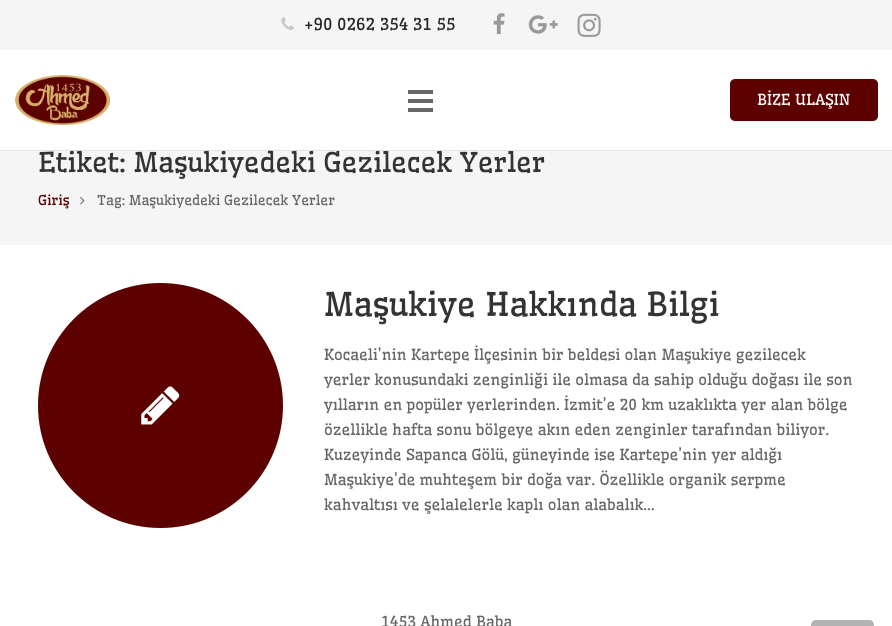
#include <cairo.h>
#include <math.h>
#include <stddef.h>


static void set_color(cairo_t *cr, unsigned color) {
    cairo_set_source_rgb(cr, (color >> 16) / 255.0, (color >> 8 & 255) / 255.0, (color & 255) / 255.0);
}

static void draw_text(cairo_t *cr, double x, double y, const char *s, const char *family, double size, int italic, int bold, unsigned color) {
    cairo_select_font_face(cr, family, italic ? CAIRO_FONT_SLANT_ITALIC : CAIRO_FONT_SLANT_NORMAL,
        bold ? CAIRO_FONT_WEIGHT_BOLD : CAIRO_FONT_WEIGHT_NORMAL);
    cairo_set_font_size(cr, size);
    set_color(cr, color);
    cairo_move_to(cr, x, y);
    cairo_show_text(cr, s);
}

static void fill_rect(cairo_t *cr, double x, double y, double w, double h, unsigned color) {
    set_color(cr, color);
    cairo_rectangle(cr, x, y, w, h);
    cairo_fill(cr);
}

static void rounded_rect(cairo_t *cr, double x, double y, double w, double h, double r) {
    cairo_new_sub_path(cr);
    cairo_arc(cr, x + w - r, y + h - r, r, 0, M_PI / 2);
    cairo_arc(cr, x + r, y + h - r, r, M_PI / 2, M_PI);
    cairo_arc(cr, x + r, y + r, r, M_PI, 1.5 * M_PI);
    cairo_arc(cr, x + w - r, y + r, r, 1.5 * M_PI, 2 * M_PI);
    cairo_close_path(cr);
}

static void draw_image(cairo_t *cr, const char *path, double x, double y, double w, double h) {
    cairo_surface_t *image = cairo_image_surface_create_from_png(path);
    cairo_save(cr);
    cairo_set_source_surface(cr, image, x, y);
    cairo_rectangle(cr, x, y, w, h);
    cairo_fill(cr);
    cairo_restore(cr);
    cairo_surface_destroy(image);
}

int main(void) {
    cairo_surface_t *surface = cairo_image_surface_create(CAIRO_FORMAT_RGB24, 892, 626);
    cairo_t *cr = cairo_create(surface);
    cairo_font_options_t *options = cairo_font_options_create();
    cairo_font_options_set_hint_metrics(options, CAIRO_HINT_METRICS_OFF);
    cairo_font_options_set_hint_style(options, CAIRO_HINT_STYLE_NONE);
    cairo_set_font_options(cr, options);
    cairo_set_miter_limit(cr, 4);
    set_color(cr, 0xFFFFFF);
    cairo_paint(cr);
    fill_rect(cr, 0, 0, 892, 245, 0xF5F5F5);
    draw_image(cr, "assets/img1.png", 281, 17, 13, 13);
    draw_text(cr, 304, 30, "+90 0262 354 31 55", "Wellfleet", 16.25, 0, 0, 0x292529);
    draw_image(cr, "assets/img2.png", 493, 13, 12, 22);
    draw_image(cr, "assets/img3.png", 528, 15, 30, 19);
    draw_image(cr, "assets/img4.png", 577, 13, 24, 24);
    cairo_set_source_rgba(cr, 0, 0, 0, 0.08);
    cairo_new_path(cr);
    cairo_move_to(cr, 0, 150);
    cairo_line_to(cr, 0, 151);
    cairo_line_to(cr, 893, 151);
    cairo_line_to(cr, 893, 51);
    cairo_line_to(cr, 892, 51);
    cairo_line_to(cr, 892, 150);
    cairo_close_path(cr);
    cairo_fill(cr);
    fill_rect(cr, 0, 50, 892, 100, 0xFFFFFF);
    draw_image(cr, "assets/img5.png", 15, 75, 95, 50);
    fill_rect(cr, 408, 99, 25, 4, 0x666666);
    fill_rect(cr, 408, 90, 25, 4, 0x666666);
    fill_rect(cr, 408, 108, 25, 4, 0x666666);
    set_color(cr, 0x5C0000);
    rounded_rect(cr, 730, 79, 148, 42, 5);
    cairo_fill(cr);
    draw_text(cr, 757, 105, "BİZE ULAŞIN", "Wellfleet", 15, 0, 0, 0xFFFFFF);
    draw_text(cr, 38, 172, "Etiket: Maşukiyedeki Gezilecek Yerler", "Wellfleet", 27, 0, 0, 0x333333);
    draw_text(cr, 38, 205, "Giriş", "Wellfleet", 13.5, 0, 0, 0x5C0000);
    draw_image(cr, "assets/img6.png", 80, 197, 5, 8);
    draw_text(cr, 97, 205, "Tag: Maşukiyedeki Gezilecek Yerler", "Wellfleet", 13.5, 0, 0, 0x666666);
    set_color(cr, 0x5C0000);
    cairo_new_path(cr);
    cairo_arc(cr, 160.5, 405.5, 122.5, 0, 2 * M_PI);
    cairo_fill(cr);
    draw_image(cr, "assets/img7.png", 141, 386, 39, 39);
    draw_text(cr, 324, 316, "Maşukiye Hakkında Bilgi", "Wellfleet", 32.5, 0, 0, 0x333333);
    draw_text(cr, 324, 360, "Kocaeli’nin Kartepe İlçesinin bir beldesi olan Maşukiye gezilecek", "Wellfleet", 15, 0, 0, 0x666666);
    draw_text(cr, 324, 385, "yerler konusundaki zenginliği ile olmasa da sahip olduğu doğası ile son", "Wellfleet", 15, 0, 0, 0x666666);
    draw_text(cr, 324, 410, "yılların en popüler yerlerinden. İzmit’e 20 km uzaklıkta yer alan bölge", "Wellfleet", 15, 0, 0, 0x666666);
    draw_text(cr, 324, 435, "özellikle hafta sonu bölgeye akın eden zenginler tarafından biliyor.", "Wellfleet", 15, 0, 0, 0x666666);
    draw_text(cr, 324, 460, "Kuzeyinde Sapanca Gölü, güneyinde ise Kartepe’nin yer aldığı", "Wellfleet", 15, 0, 0, 0x666666);
    draw_text(cr, 324, 485, "Maşukiye’de muhteşem bir doğa var. Özellikle organik serpme", "Wellfleet", 15, 0, 0, 0x666666);
    draw_text(cr, 324, 510, "kahvaltısı ve şelalelerle kaplı olan alabalık…", "Wellfleet", 15, 0, 0, 0x666666);
    draw_text(cr, 381, 627, "1453 Ahmed Baba", "Wellfleet", 15, 0, 0, 0x666666);
    set_color(cr, 0xB3B3B3);
    rounded_rect(cr, 811, 620, 63, 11, 5);
    cairo_fill(cr);
    cairo_surface_write_to_png(surface, "output.png");
    cairo_font_options_destroy(options);
    cairo_destroy(cr);
    cairo_surface_destroy(surface);
    return 0;
}
